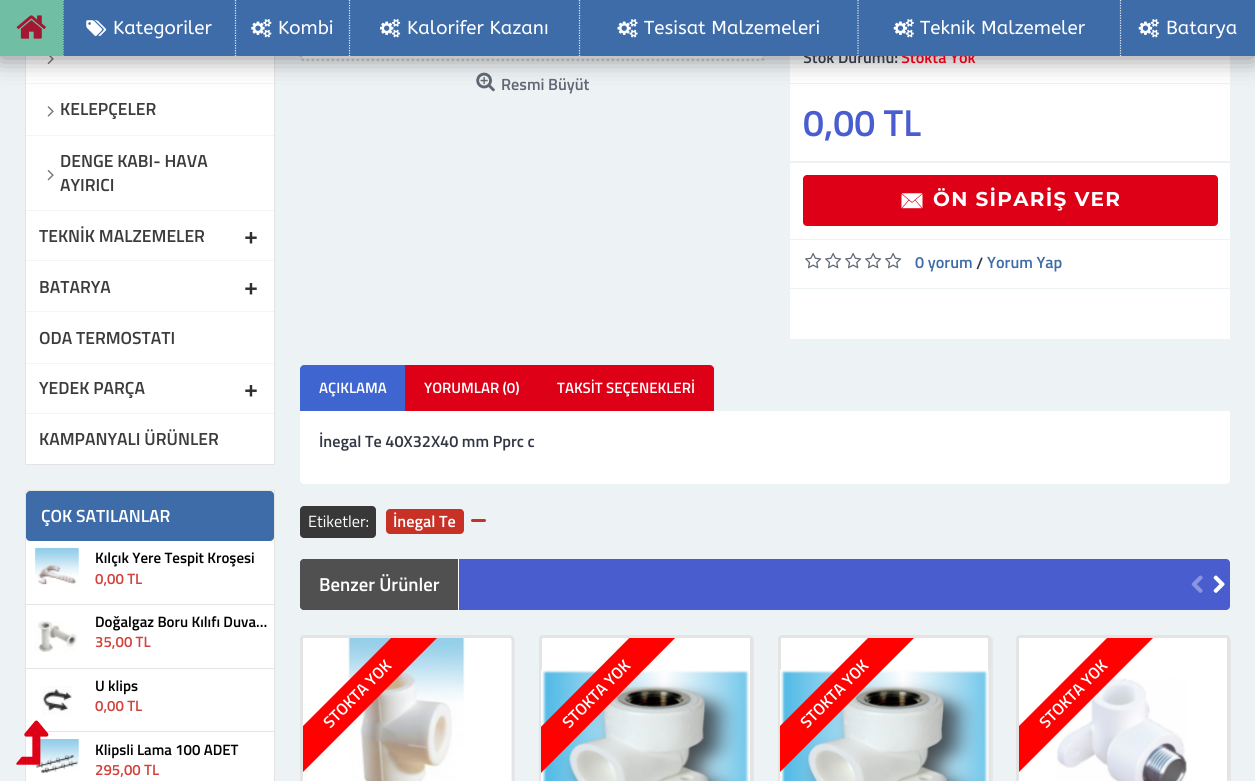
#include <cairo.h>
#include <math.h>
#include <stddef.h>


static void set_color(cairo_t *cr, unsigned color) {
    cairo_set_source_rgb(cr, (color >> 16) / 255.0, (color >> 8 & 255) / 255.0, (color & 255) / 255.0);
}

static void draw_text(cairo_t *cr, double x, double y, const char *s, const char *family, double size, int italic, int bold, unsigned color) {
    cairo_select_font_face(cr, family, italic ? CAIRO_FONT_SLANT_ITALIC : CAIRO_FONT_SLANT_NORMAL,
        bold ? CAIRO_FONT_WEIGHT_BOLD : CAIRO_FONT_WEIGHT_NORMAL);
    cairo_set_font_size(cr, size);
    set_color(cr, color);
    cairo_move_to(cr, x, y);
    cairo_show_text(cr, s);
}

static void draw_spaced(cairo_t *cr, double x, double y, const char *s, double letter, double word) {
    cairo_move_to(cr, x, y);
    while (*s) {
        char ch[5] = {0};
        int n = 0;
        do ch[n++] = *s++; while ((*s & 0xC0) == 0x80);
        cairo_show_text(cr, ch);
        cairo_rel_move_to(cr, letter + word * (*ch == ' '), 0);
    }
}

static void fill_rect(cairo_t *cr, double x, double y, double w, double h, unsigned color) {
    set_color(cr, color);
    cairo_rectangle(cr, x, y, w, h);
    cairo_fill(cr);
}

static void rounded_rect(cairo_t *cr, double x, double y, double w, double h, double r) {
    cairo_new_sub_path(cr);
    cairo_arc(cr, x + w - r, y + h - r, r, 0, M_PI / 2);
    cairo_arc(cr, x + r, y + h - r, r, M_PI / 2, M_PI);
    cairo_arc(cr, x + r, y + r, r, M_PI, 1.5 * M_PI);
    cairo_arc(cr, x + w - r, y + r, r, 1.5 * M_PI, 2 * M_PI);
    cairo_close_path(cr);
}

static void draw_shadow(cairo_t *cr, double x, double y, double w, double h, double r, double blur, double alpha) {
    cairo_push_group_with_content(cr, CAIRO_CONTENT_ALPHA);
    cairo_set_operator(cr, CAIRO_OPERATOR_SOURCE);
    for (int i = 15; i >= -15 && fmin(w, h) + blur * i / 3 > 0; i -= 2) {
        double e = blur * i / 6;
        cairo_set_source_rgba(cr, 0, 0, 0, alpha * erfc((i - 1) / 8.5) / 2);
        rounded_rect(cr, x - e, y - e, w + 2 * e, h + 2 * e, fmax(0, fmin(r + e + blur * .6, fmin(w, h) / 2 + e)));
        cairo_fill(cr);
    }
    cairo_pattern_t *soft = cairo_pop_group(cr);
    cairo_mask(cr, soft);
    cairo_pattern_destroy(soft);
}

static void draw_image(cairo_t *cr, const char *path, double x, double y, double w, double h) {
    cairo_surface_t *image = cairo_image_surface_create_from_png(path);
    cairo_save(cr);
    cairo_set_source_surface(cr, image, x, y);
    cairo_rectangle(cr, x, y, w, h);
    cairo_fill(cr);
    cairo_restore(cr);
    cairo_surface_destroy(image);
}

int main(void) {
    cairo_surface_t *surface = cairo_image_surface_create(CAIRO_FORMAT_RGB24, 1255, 781);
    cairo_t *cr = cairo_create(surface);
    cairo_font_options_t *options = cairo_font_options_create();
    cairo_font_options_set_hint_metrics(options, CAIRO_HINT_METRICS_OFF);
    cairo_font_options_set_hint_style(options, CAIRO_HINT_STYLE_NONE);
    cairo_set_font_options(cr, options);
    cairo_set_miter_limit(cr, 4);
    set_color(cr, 0xEDF2F5);
    cairo_paint(cr);
    fill_rect(cr, 26, 56, 248, 408, 0xFFFFFF);
    cairo_rectangle(cr, 25.5, -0.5, 249, 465);
    set_color(cr, 0xE4E4E4);
    cairo_set_line_width(cr, 1);
    cairo_stroke(cr);
    fill_rect(cr, 26, 83, 248, 1, 0xF4F4F4);
    draw_image(cr, "assets/img8.png", 47, 56, 7, 8);
    cairo_new_path(cr);
    cairo_move_to(cr, 304, -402.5);
    cairo_line_to(cr, 761, -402.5);
    cairo_curve_to(cr, 762.5, -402.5, 764, -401.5, 764, -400);
    cairo_line_to(cr, 764, 57.5);
    cairo_curve_to(cr, 764, 59, 762.5, 60, 761, 60);
    cairo_line_to(cr, 304, 60);
    cairo_curve_to(cr, 302.5, 60, 301, 59, 301, 57.5);
    cairo_line_to(cr, 301, -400);
    cairo_curve_to(cr, 301, -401.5, 302.5, -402.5, 304, -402.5);
    cairo_close_path(cr);
    set_color(cr, 0xCCCCCC);
    cairo_set_line_width(cr, 2.5);
    cairo_set_dash(cr, (double[]){2.5, 2.5}, 2, 0);
    cairo_stroke(cr);
    draw_image(cr, "assets/img15.png", 302, 56, 461, 4);
    draw_image(cr, "assets/img16.png", 476, 72, 19, 20);
    fill_rect(cr, 790, 56, 440, 27, 0xFFFFFF);
    fill_rect(cr, 790, 84, 440, 77, 0xFFFFFF);
    set_color(cr, 0x000000);
    draw_shadow(cr, 0, 1, 1255, 57, 0, 12.5, 0.45);
    draw_text(cr, 803, 63, "Stok Durumu:", "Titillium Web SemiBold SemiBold", 16.25, 0, 0, 0x333745);
    draw_text(cr, 901, 63, "Stokta Yok", "Titillium Web SemiBold SemiBold", 16.25, 0, 0, 0xDD0017);
    fill_rect(cr, 63, 0, 1192, 56, 0x3E6CA9);
    cairo_new_path(cr);
    cairo_move_to(cr, 63, 0);
    cairo_line_to(cr, 63, 56);
    set_color(cr, 0xE2E9F2);
    cairo_set_line_width(cr, 1.2);
    cairo_set_dash(cr, (double[]){1.25, 1.25}, 2, 0);
    cairo_stroke(cr);
    fill_rect(cr, 0, 0, 63, 56, 0x70BEA4);
    draw_image(cr, "assets/img1.png", 16, 15, 30, 24);
    draw_image(cr, "assets/img2.png", 86, 20, 21, 16);
    draw_text(cr, 113, 34, "Kategoriler", "ABeeZee", 18.75, 0, 0, 0xFFFFFF);
    cairo_new_path(cr);
    cairo_move_to(cr, 235.5, 0);
    cairo_line_to(cr, 235.5, 56);
    set_color(cr, 0xE2E9F2);
    cairo_stroke(cr);
    draw_image(cr, "assets/img3.png", 251, 19, 21, 19);
    draw_text(cr, 278, 34, "Kombi", "ABeeZee", 18.75, 0, 0, 0xFFFFFF);
    cairo_new_path(cr);
    cairo_move_to(cr, 349.5, 0);
    cairo_line_to(cr, 349.5, 56);
    set_color(cr, 0xE2E9F2);
    cairo_stroke(cr);
    draw_image(cr, "assets/img4.png", 380, 19, 21, 19);
    draw_text(cr, 407, 34, "Kalorifer Kazanı", "ABeeZee", 18.75, 0, 0, 0xFFFFFF);
    cairo_new_path(cr);
    cairo_move_to(cr, 579.5, 0);
    cairo_line_to(cr, 579.5, 56);
    set_color(cr, 0xE2E9F2);
    cairo_stroke(cr);
    draw_image(cr, "assets/img5.png", 617, 19, 21, 19);
    draw_text(cr, 644, 34, "Tesisat Malzemeleri", "ABeeZee", 18.75, 0, 0, 0xFFFFFF);
    cairo_new_path(cr);
    cairo_move_to(cr, 858, 0);
    cairo_line_to(cr, 858, 56);
    set_color(cr, 0xE2E9F2);
    cairo_stroke(cr);
    draw_image(cr, "assets/img6.png", 893, 19, 21, 19);
    draw_text(cr, 920, 34, "Teknik Malzemeler", "ABeeZee", 18.75, 0, 0, 0xFFFFFF);
    cairo_new_path(cr);
    cairo_move_to(cr, 1120.5, 0);
    cairo_line_to(cr, 1120.5, 56);
    set_color(cr, 0xE2E9F2);
    cairo_stroke(cr);
    draw_image(cr, "assets/img6.png", 1138, 19, 21, 19);
    draw_text(cr, 1166, 34, "Batarya", "ABeeZee", 18.75, 0, 0, 0xFFFFFF);
    cairo_rectangle(cr, 25.5, 490.5, 249, 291);
    cairo_fill_preserve(cr);
    set_color(cr, 0xE4E4E4);
    cairo_set_line_width(cr, 1);
    cairo_set_dash(cr, NULL, 0, 0);
    cairo_stroke(cr);
    fill_rect(cr, 26, 731, 248, 1, 0xE4E4E4);
    draw_image(cr, "assets/img14.png", 34, 739, 45, 34);
    draw_image(cr, "assets/img7.png", 16, 720, 33, 45);
    fill_rect(cr, 26, 135, 248, 1, 0xF4F4F4);
    draw_image(cr, "assets/img9.png", 47, 106, 7, 11);
    draw_text(cr, 60, 115, "KELEPÇELER", "Titillium Web SemiBold SemiBold", 17.5, 0, 0, 0x3C3C3C);
    fill_rect(cr, 26, 210, 248, 1, 0xF4F4F4);
    draw_image(cr, "assets/img10.png", 47, 170, 7, 11);
    draw_text(cr, 60, 167, "DENGE KABI- HAVA", "Titillium Web SemiBold SemiBold", 17.5, 0, 0, 0x3C3C3C);
    draw_text(cr, 60, 191, "AYIRICI", "Titillium Web SemiBold SemiBold", 17.5, 0, 0, 0x3C3C3C);
    fill_rect(cr, 26, 260, 248, 1, 0xF4F4F4);
    draw_text(cr, 39, 242, "TEKNİK MALZEMELER", "Titillium Web SemiBold SemiBold", 17.5, 0, 0, 0x3C3C3C);
    draw_text(cr, 244, 244, "+", "Titillium Web SemiBold SemiBold", 25, 0, 0, 0x2F2F2F);
    fill_rect(cr, 26, 311, 248, 1, 0xF4F4F4);
    draw_text(cr, 39, 293, "BATARYA", "Titillium Web SemiBold SemiBold", 17.5, 0, 0, 0x3C3C3C);
    draw_text(cr, 244, 295, "+", "Titillium Web SemiBold SemiBold", 25, 0, 0, 0x2F2F2F);
    fill_rect(cr, 26, 363, 248, 1, 0xF4F4F4);
    draw_text(cr, 39, 344, "ODA TERMOSTATI", "Titillium Web SemiBold SemiBold", 17.5, 0, 0, 0x3C3C3C);
    fill_rect(cr, 26, 413, 248, 1, 0xF4F4F4);
    draw_text(cr, 39, 394, "YEDEK PARÇA", "Titillium Web SemiBold SemiBold", 17.5, 0, 0, 0x3C3C3C);
    draw_text(cr, 244, 397, "+", "Titillium Web SemiBold SemiBold", 25, 0, 0, 0x2F2F2F);
    draw_text(cr, 39, 445, "KAMPANYALI ÜRÜNLER", "Titillium Web SemiBold SemiBold", 17.5, 0, 0, 0x3C3C3C);
    set_color(cr, 0x3E6CA9);
    rounded_rect(cr, 26, 491, 248, 50, 4);
    cairo_fill(cr);
    draw_text(cr, 41, 522, "ÇOK SATILANLAR", "Titillium Web SemiBold SemiBold", 17.5, 0, 0, 0xFFFFFF);
    fill_rect(cr, 26, 604, 248, 1, 0xE4E4E4);
    draw_image(cr, "assets/img11.png", 34, 547, 45, 38);
    draw_text(cr, 95, 563, "Kılçık Yere Tespit Kroşesi", "Titillium Web SemiBold SemiBold", 15, 0, 0, 0x000000);
    draw_text(cr, 95, 584, "0,00 TL", "Titillium Web SemiBold SemiBold", 15, 0, 0, 0xD1433C);
    fill_rect(cr, 26, 668, 248, 1, 0xE4E4E4);
    draw_image(cr, "assets/img12.png", 34, 621, 43, 31);
    draw_text(cr, 95, 627, "Doğalgaz Boru Kılıfı Duva…", "Titillium Web SemiBold SemiBold", 15, 0, 0, 0x000000);
    draw_text(cr, 95, 647, "35,00 TL", "Titillium Web SemiBold SemiBold", 15, 0, 0, 0xD1433C);
    draw_image(cr, "assets/img13.png", 42, 686, 30, 29);
    draw_text(cr, 95, 691, "U klips", "Titillium Web SemiBold SemiBold", 15, 0, 0, 0x000000);
    draw_text(cr, 95, 711, "0,00 TL", "Titillium Web SemiBold SemiBold", 15, 0, 0, 0xD1433C);
    draw_text(cr, 95, 755, "Klipsli Lama 100 ADET", "Titillium Web SemiBold SemiBold", 15, 0, 0, 0x000000);
    draw_text(cr, 95, 775, "295,00 TL", "Titillium Web SemiBold SemiBold", 15, 0, 0, 0xD1433C);
    draw_text(cr, 501, 90, "Resmi Büyüt", "Titillium Web SemiBold SemiBold", 16.25, 0, 0, 0x5F6874);
    draw_text(cr, 803, 136, "0,00 TL", "Titillium Web SemiBold SemiBold", 37.5, 0, 0, 0x495DCE);
    fill_rect(cr, 790, 163, 440, 76, 0xFFFFFF);
    set_color(cr, 0xDD0017);
    rounded_rect(cr, 803, 175, 415, 51, 4);
    cairo_fill(cr);
    draw_image(cr, "assets/img17.png", 901, 193, 22, 16);
    cairo_select_font_face(cr, "Montserrat Thin", CAIRO_FONT_SLANT_NORMAL, CAIRO_FONT_WEIGHT_NORMAL);
    cairo_set_font_size(cr, 20);
    set_color(cr, 0xFFFFFF);
    draw_spaced(cr, 933, 206, "ÖN SİPARİŞ VER", 1.25, 0);
    fill_rect(cr, 790, 240, 440, 48, 0xFFFFFF);
    draw_image(cr, "assets/img18.png", 805, 252, 17, 17);
    draw_image(cr, "assets/img18.png", 825, 252, 17, 17);
    draw_image(cr, "assets/img18.png", 845, 252, 17, 17);
    draw_image(cr, "assets/img18.png", 865, 252, 17, 17);
    draw_image(cr, "assets/img18.png", 885, 252, 17, 17);
    draw_text(cr, 915, 268, "0 yorum", "Titillium Web SemiBold SemiBold", 16.25, 0, 0, 0x3E6CA9);
    draw_text(cr, 976, 269, "/", "Titillium Web SemiBold SemiBold", 16.25, 0, 0, 0x333745);
    draw_text(cr, 987, 268, "Yorum Yap", "Titillium Web SemiBold SemiBold", 16.25, 0, 0, 0x3E6CA9);
    fill_rect(cr, 790, 289, 440, 50, 0xFFFFFF);
    set_color(cr, 0x3F66D0);
    cairo_new_path(cr);
    cairo_move_to(cr, 304, 365);
    cairo_line_to(cr, 405, 365);
    cairo_line_to(cr, 405, 411);
    cairo_line_to(cr, 300, 411);
    cairo_line_to(cr, 300, 369);
    cairo_curve_to(cr, 300, 367, 302, 365, 304, 365);
    cairo_close_path(cr);
    cairo_fill(cr);
    draw_text(cr, 319, 393, "AÇIKLAMA", "Titillium Web SemiBold SemiBold", 15, 0, 0, 0xFFFFFF);
    fill_rect(cr, 405, 365, 134, 46, 0xDD0017);
    draw_text(cr, 424, 393, "YORUMLAR (0)", "Titillium Web SemiBold SemiBold", 15, 0, 0, 0xFFFFFF);
    set_color(cr, 0xDD0017);
    cairo_new_path(cr);
    cairo_move_to(cr, 539, 365);
    cairo_line_to(cr, 710, 365);
    cairo_curve_to(cr, 712, 365, 714, 367, 714, 369);
    cairo_line_to(cr, 714, 411);
    cairo_line_to(cr, 539, 411);
    cairo_close_path(cr);
    cairo_fill(cr);
    draw_text(cr, 557, 393, "TAKSİT SEÇENEKLERİ", "Titillium Web SemiBold SemiBold", 15, 0, 0, 0xFFFFFF);
    cairo_new_path(cr);
    cairo_move_to(cr, 300, 411);
    cairo_line_to(cr, 1230, 411);
    cairo_line_to(cr, 1230, 480);
    cairo_curve_to(cr, 1230, 482, 1228, 484, 1226, 484);
    cairo_line_to(cr, 304, 484);
    cairo_curve_to(cr, 302, 484, 300, 482, 300, 480);
    cairo_close_path(cr);
    cairo_fill(cr);
    draw_text(cr, 319, 447, "İnegal Te 40X32X40 mm Pprc c", "Titillium Web SemiBold SemiBold", 16.25, 0, 0, 0x333745);
    set_color(cr, 0x383838);
    rounded_rect(cr, 300, 506, 76, 32, 4);
    cairo_fill(cr);
    draw_text(cr, 308, 527, "Etiketler:", "Titillium Web", 16.25, 0, 0, 0xFFFFFF);
    set_color(cr, 0xC73126);
    rounded_rect(cr, 386, 509, 78, 25, 4);
    cairo_fill(cr);
    draw_text(cr, 393, 527, "İnegal Te", "Titillium Web SemiBold SemiBold", 16.25, 0, 0, 0xFFFFFF);
    set_color(cr, 0xC73126);
    rounded_rect(cr, 471, 519, 15, 3, 1.5);
    cairo_fill(cr);
    set_color(cr, 0x495DCE);
    rounded_rect(cr, 300, 559, 930, 51, 4);
    cairo_fill(cr);
    set_color(cr, 0x505050);
    cairo_new_path(cr);
    cairo_move_to(cr, 304, 559);
    cairo_line_to(cr, 459, 559);
    cairo_line_to(cr, 459, 610);
    cairo_line_to(cr, 304, 610);
    cairo_curve_to(cr, 302, 610, 300, 608, 300, 606);
    cairo_line_to(cr, 300, 563);
    cairo_curve_to(cr, 300, 561, 302, 559, 304, 559);
    cairo_close_path(cr);
    cairo_fill(cr);
    fill_rect(cr, 458, 559, 1, 51, 0xFFFFFF);
    draw_text(cr, 319, 591, "Benzer Ürünler", "Titillium Web SemiBold SemiBold", 18.75, 0, 0, 0xFFFFFF);
    draw_image(cr, "assets/img19.png", 1191, 575, 12, 18);
    draw_image(cr, "assets/img20.png", 1213, 575, 12, 18);
    set_color(cr, 0xE4E8EB);
    cairo_new_path(cr);
    cairo_move_to(cr, 301, 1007);
    cairo_curve_to(cr, 302, 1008, 303, 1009, 305, 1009);
    cairo_line_to(cr, 511, 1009);
    cairo_curve_to(cr, 513, 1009, 515, 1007, 515, 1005);
    cairo_line_to(cr, 515, 640);
    cairo_curve_to(cr, 515, 639, 514, 637, 513, 637);
    cairo_line_to(cr, 514, 639);
    cairo_line_to(cr, 514, 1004);
    cairo_curve_to(cr, 514, 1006, 512, 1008, 510, 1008);
    cairo_line_to(cr, 304, 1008);
    cairo_close_path(cr);
    cairo_fill(cr);
    set_color(cr, 0xFFFFFF);
    rounded_rect(cr, 301.5, 636.5, 211, 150, 2.5);
    cairo_fill_preserve(cr);
    set_color(cr, 0xE4E4E4);
    cairo_set_line_width(cr, 3);
    cairo_stroke(cr);
    draw_image(cr, "assets/img21.png", 347, 638, 165, 143);
    cairo_save(cr);
    cairo_rectangle(cr, 303, 638, 208, 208);
    cairo_clip(cr);
    set_color(cr, 0xFF0101);
    cairo_new_path(cr);
    cairo_move_to(cr, 260, 769);
    cairo_line_to(cr, 437, 592);
    cairo_line_to(cr, 460, 615);
    cairo_line_to(cr, 283, 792);
    cairo_close_path(cr);
    cairo_fill(cr);
    cairo_restore(cr);
    cairo_save(cr);
    cairo_translate(cr, 330, 729);
    cairo_rotate(cr, -45 * M_PI / 180);
    draw_text(cr, 0, 0, "STOKTA YOK", "Titillium Web SemiBold SemiBold", 16.25, 0, 0, 0xFFFFFF);
    cairo_restore(cr);
    set_color(cr, 0xE4E8EB);
    cairo_new_path(cr);
    cairo_move_to(cr, 540, 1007);
    cairo_curve_to(cr, 541, 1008, 542, 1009, 544, 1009);
    cairo_line_to(cr, 750, 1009);
    cairo_curve_to(cr, 752, 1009, 754, 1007, 754, 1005);
    cairo_line_to(cr, 754, 640);
    cairo_curve_to(cr, 754, 638, 753, 637, 752, 636);
    cairo_line_to(cr, 752, 639);
    cairo_line_to(cr, 752, 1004);
    cairo_curve_to(cr, 752, 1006, 751, 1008, 749, 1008);
    cairo_line_to(cr, 542, 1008);
    cairo_close_path(cr);
    cairo_fill(cr);
    set_color(cr, 0xFFFFFF);
    rounded_rect(cr, 540.5, 636.5, 211, 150, 2.5);
    cairo_fill_preserve(cr);
    set_color(cr, 0xE4E4E4);
    cairo_stroke(cr);
    draw_image(cr, "assets/img22.png", 541, 669, 208, 112);
    cairo_save(cr);
    cairo_rectangle(cr, 541, 638, 209, 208);
    cairo_clip(cr);
    set_color(cr, 0xFF0101);
    cairo_new_path(cr);
    cairo_move_to(cr, 499, 769);
    cairo_line_to(cr, 675, 592);
    cairo_line_to(cr, 698, 615);
    cairo_line_to(cr, 522, 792);
    cairo_close_path(cr);
    cairo_fill(cr);
    cairo_restore(cr);
    cairo_save(cr);
    cairo_translate(cr, 569, 729);
    cairo_rotate(cr, -45 * M_PI / 180);
    draw_text(cr, 0, 0, "STOKTA YOK", "Titillium Web SemiBold SemiBold", 16.25, 0, 0, 0xFFFFFF);
    cairo_restore(cr);
    set_color(cr, 0xE4E8EB);
    cairo_new_path(cr);
    cairo_move_to(cr, 780, 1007);
    cairo_curve_to(cr, 780, 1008, 782, 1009, 783, 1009);
    cairo_line_to(cr, 989, 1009);
    cairo_curve_to(cr, 991, 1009, 993, 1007, 993, 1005);
    cairo_line_to(cr, 993, 640);
    cairo_curve_to(cr, 993, 638, 992, 637, 990, 636);
    cairo_curve_to(cr, 991, 637, 991, 638, 991, 639);
    cairo_line_to(cr, 991, 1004);
    cairo_curve_to(cr, 991, 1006, 990, 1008, 988, 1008);
    cairo_line_to(cr, 781, 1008);
    cairo_close_path(cr);
    cairo_fill(cr);
    set_color(cr, 0xFFFFFF);
    rounded_rect(cr, 779.5, 636.5, 210, 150, 2.5);
    cairo_fill_preserve(cr);
    set_color(cr, 0xE4E4E4);
    cairo_stroke(cr);
    draw_image(cr, "assets/img23.png", 780, 669, 209, 112);
    cairo_save(cr);
    cairo_rectangle(cr, 780, 638, 209, 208);
    cairo_clip(cr);
    set_color(cr, 0xFF0101);
    cairo_new_path(cr);
    cairo_move_to(cr, 737, 769);
    cairo_line_to(cr, 914, 592);
    cairo_line_to(cr, 937, 615);
    cairo_line_to(cr, 760, 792);
    cairo_close_path(cr);
    cairo_fill(cr);
    cairo_restore(cr);
    cairo_save(cr);
    cairo_translate(cr, 807, 729);
    cairo_rotate(cr, -45 * M_PI / 180);
    draw_text(cr, 0, 0, "STOKTA YOK", "Titillium Web SemiBold SemiBold", 16.25, 0, 0, 0xFFFFFF);
    cairo_restore(cr);
    set_color(cr, 0xE4E8EB);
    cairo_new_path(cr);
    cairo_move_to(cr, 1019, 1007);
    cairo_curve_to(cr, 1019, 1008, 1021, 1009, 1022, 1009);
    cairo_line_to(cr, 1227, 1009);
    cairo_curve_to(cr, 1229, 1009, 1231, 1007, 1231, 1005);
    cairo_line_to(cr, 1231, 640);
    cairo_curve_to(cr, 1231, 639, 1230, 638, 1229, 637);
    cairo_line_to(cr, 1230, 639);
    cairo_line_to(cr, 1230, 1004);
    cairo_curve_to(cr, 1230, 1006, 1228, 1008, 1226, 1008);
    cairo_close_path(cr);
    cairo_fill(cr);
    set_color(cr, 0xFFFFFF);
    rounded_rect(cr, 1017.5, 636.5, 211, 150, 2.5);
    cairo_fill_preserve(cr);
    set_color(cr, 0xE4E4E4);
    cairo_stroke(cr);
    draw_image(cr, "assets/img24.png", 1056, 678, 131, 103);
    cairo_save(cr);
    cairo_rectangle(cr, 1019, 638, 209, 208);
    cairo_clip(cr);
    set_color(cr, 0xFF0101);
    cairo_new_path(cr);
    cairo_move_to(cr, 976, 769);
    cairo_line_to(cr, 1153, 592);
    cairo_line_to(cr, 1176, 615);
    cairo_line_to(cr, 999, 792);
    cairo_close_path(cr);
    cairo_fill(cr);
    cairo_restore(cr);
    cairo_save(cr);
    cairo_translate(cr, 1046, 729);
    cairo_rotate(cr, -45 * M_PI / 180);
    draw_text(cr, 0, 0, "STOKTA YOK", "Titillium Web SemiBold SemiBold", 16.25, 0, 0, 0xFFFFFF);
    cairo_restore(cr);
    cairo_surface_write_to_png(surface, "output.png");
    cairo_font_options_destroy(options);
    cairo_destroy(cr);
    cairo_surface_destroy(surface);
    return 0;
}
